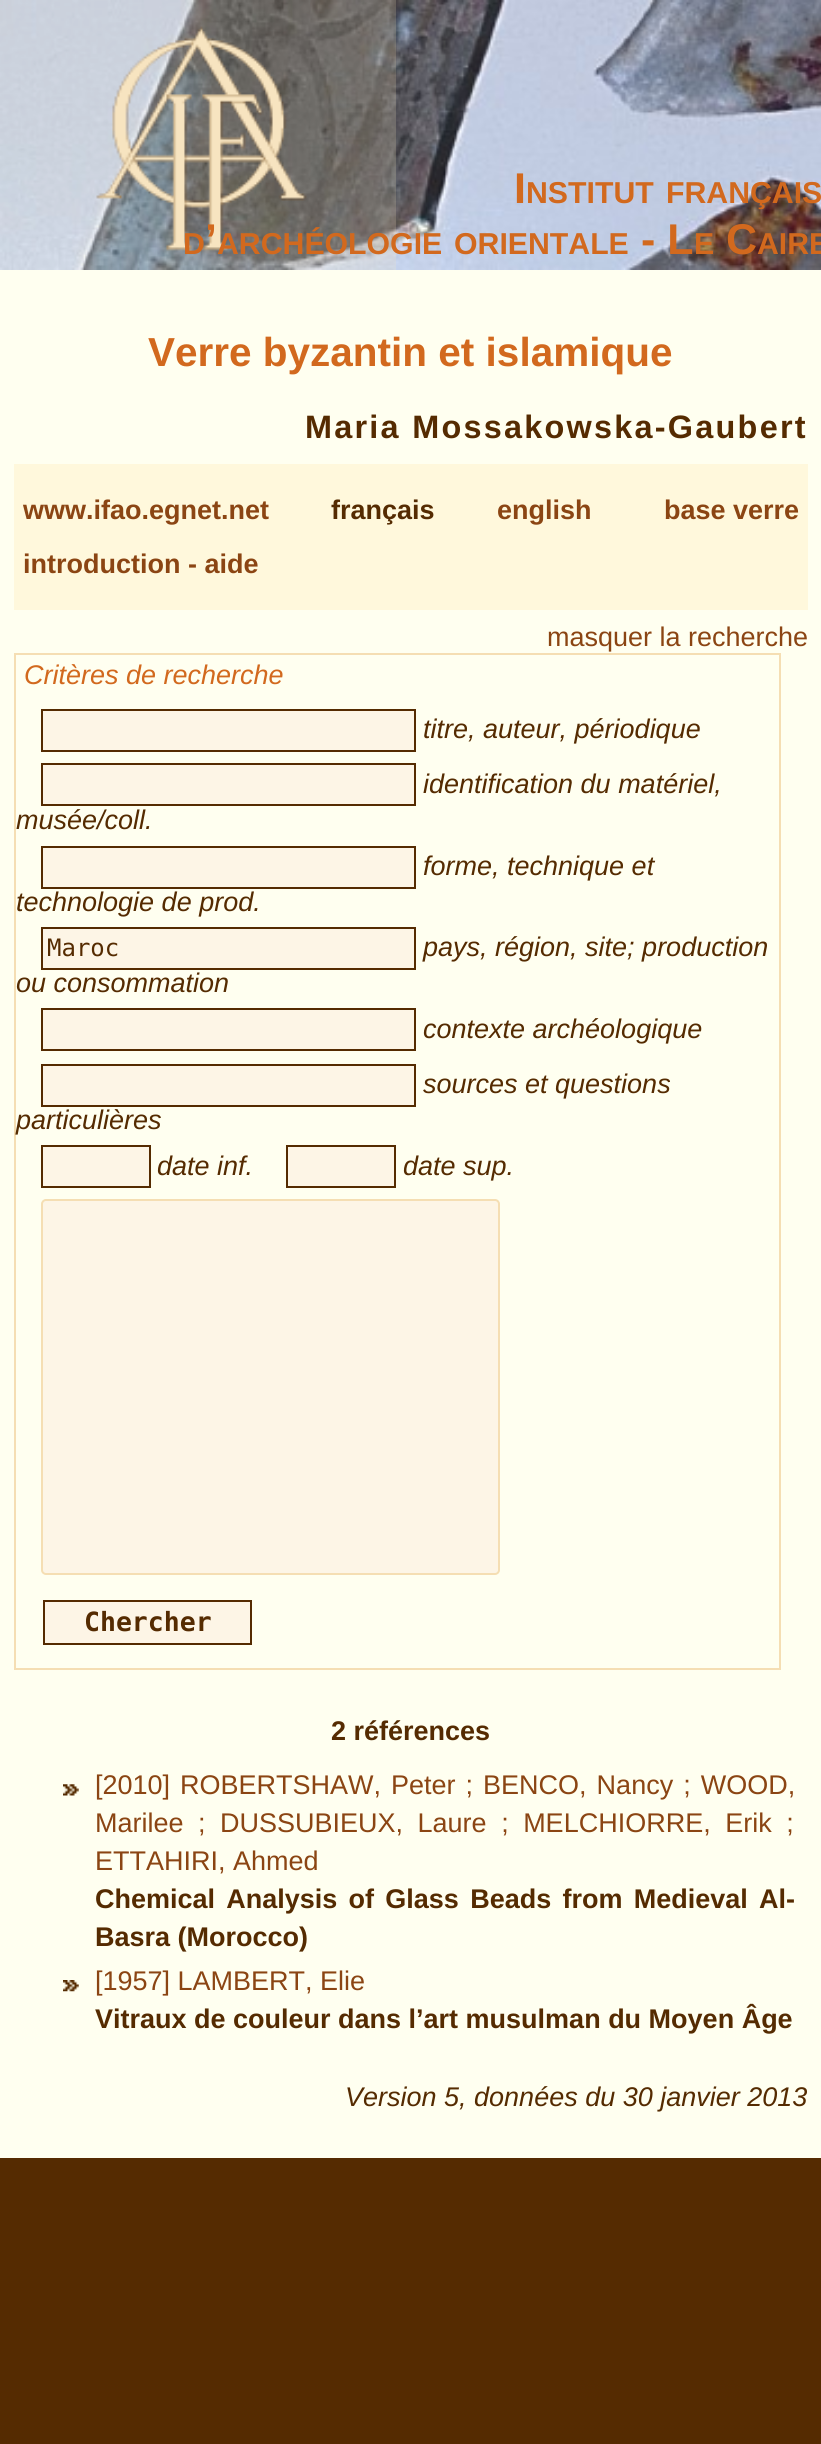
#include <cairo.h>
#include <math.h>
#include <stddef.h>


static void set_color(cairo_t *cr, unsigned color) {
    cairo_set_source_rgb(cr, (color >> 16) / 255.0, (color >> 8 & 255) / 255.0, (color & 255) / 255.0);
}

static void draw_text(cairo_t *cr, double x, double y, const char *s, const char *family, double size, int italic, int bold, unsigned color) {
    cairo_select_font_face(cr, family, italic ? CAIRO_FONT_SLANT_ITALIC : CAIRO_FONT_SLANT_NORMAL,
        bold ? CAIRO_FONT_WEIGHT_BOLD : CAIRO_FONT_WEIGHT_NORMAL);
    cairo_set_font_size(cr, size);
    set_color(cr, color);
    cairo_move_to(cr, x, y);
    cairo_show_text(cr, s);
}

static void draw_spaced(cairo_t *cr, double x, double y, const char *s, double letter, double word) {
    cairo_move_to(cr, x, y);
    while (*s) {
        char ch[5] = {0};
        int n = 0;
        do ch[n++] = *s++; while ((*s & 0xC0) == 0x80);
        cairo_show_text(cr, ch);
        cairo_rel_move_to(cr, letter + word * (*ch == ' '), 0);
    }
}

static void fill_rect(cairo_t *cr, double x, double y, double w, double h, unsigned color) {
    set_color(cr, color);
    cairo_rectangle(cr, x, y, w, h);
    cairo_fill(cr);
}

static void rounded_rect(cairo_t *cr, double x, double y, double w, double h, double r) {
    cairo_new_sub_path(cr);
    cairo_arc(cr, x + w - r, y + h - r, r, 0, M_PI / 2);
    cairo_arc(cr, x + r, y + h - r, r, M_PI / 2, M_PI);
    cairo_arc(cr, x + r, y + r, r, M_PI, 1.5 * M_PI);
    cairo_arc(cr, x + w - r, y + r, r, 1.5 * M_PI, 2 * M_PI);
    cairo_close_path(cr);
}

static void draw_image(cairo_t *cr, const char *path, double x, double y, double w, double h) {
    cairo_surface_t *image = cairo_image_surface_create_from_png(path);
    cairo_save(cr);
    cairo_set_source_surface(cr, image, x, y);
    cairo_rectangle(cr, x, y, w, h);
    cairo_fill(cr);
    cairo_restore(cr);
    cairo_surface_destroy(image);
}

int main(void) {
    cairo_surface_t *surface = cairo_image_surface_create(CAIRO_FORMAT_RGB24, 821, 2444);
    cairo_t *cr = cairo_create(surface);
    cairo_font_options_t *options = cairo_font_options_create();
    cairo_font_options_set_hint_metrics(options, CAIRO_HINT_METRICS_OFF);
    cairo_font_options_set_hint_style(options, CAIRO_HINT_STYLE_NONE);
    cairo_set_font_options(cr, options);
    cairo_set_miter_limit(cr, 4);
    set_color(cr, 0x552B01);
    cairo_paint(cr);
    fill_rect(cr, 0, 270, 821, 1888, 0xFFFFF0);
    draw_image(cr, "assets/img1.png", 0, 0, 821, 270);
    draw_image(cr, "assets/img2.png", 0, 0, 396, 270);
    draw_text(cr, 514, 203, "I", "Liberation Sans", 43, 0, 1, 0xD2691E);
    draw_text(cr, 526, 203, "NSTITUT", "Liberation Sans", 30.25, 0, 1, 0xD2691E);
    draw_text(cr, 666, 203, "FRANÇAIS", "Liberation Sans", 30.25, 0, 1, 0xD2691E);
    draw_text(cr, 183, 254, "D", "Liberation Sans", 30.25, 0, 1, 0xD2691E);
    draw_text(cr, 205, 254, "’", "Liberation Sans", 43, 0, 1, 0xD2691E);
    draw_text(cr, 217, 254, "ARCHÉOLOGIE", "Liberation Sans", 30.25, 0, 1, 0xD2691E);
    draw_text(cr, 454, 254, "ORIENTALE", "Liberation Sans", 30.25, 0, 1, 0xD2691E);
    draw_text(cr, 641, 254, "- L", "Liberation Sans", 43, 0, 1, 0xD2691E);
    draw_text(cr, 694, 254, "E", "Liberation Sans", 30.25, 0, 1, 0xD2691E);
    draw_text(cr, 726, 254, "C", "Liberation Sans", 43, 0, 1, 0xD2691E);
    draw_text(cr, 757, 254, "AIRE", "Liberation Sans", 30.25, 0, 1, 0xD2691E);
    draw_text(cr, 148, 366, "Verre byzantin et islamique", "Liberation Sans", 40.5, 0, 1, 0xD2691E);
    cairo_set_font_size(cr, 32.4);
    set_color(cr, 0x552B01);
    draw_spaced(cr, 305, 438, "Maria Mossakowska-Gaubert", 2.25, 0);
    fill_rect(cr, 14, 464, 794, 146, 0xFFF8DC);
    draw_text(cr, 23, 519, "www.ifao.egnet.net", "Liberation Sans", 27, 0, 1, 0x8B4513);
    draw_text(cr, 331, 519, "français", "Liberation Sans", 27, 0, 1, 0x552B01);
    draw_text(cr, 497, 519, "english", "Liberation Sans", 27, 0, 1, 0x8B4513);
    draw_text(cr, 664, 519, "base verre", "Liberation Sans", 27, 0, 1, 0x8B4513);
    draw_text(cr, 23, 573, "introduction - aide", "Liberation Sans", 27, 0, 1, 0x8B4513);
    draw_text(cr, 547, 646, "masquer la recherche", "Liberation Sans", 27, 0, 0, 0x8B4513);
    cairo_rectangle(cr, 15, 654, 765, 1015);
    set_color(cr, 0xF5DEB3);
    cairo_stroke(cr);
    draw_text(cr, 24, 684, "Critères de recherche", "Liberation Sans", 27, 1, 0, 0xD2691E);
    set_color(cr, 0xFDF5E6);
    cairo_rectangle(cr, 42, 710, 373, 41);
    cairo_fill_preserve(cr);
    set_color(cr, 0x552B01);
    cairo_stroke(cr);
    draw_text(cr, 423, 738, "titre, auteur, périodique", "Liberation Sans", 27, 1, 0, 0x552B01);
    set_color(cr, 0xFDF5E6);
    cairo_rectangle(cr, 42, 764, 373, 41);
    cairo_fill_preserve(cr);
    set_color(cr, 0x552B01);
    cairo_stroke(cr);
    draw_text(cr, 423, 793, "identification du matériel,", "Liberation Sans", 27, 1, 0, 0x552B01);
    draw_text(cr, 16, 829, "musée/coll.", "Liberation Sans", 27, 1, 0, 0x552B01);
    set_color(cr, 0xFDF5E6);
    cairo_rectangle(cr, 42, 847, 373, 41);
    cairo_fill_preserve(cr);
    set_color(cr, 0x552B01);
    cairo_stroke(cr);
    draw_text(cr, 423, 875, "forme, technique et", "Liberation Sans", 27, 1, 0, 0x552B01);
    draw_text(cr, 16, 911, "technologie de prod.", "Liberation Sans", 27, 1, 0, 0x552B01);
    set_color(cr, 0xFDF5E6);
    cairo_rectangle(cr, 42, 928, 373, 41);
    cairo_fill_preserve(cr);
    set_color(cr, 0x552B01);
    cairo_stroke(cr);
    draw_text(cr, 47, 956, "Maroc", "DejaVu Sans Mono", 24, 0, 0, 0x552B01);
    draw_text(cr, 423, 956, "pays, région, site; production", "Liberation Sans", 27, 1, 0, 0x552B01);
    draw_text(cr, 16, 992, "ou consommation", "Liberation Sans", 27, 1, 0, 0x552B01);
    set_color(cr, 0xFDF5E6);
    cairo_rectangle(cr, 42, 1009, 373, 41);
    cairo_fill_preserve(cr);
    set_color(cr, 0x552B01);
    cairo_stroke(cr);
    draw_text(cr, 423, 1038, "contexte archéologique", "Liberation Sans", 27, 1, 0, 0x552B01);
    set_color(cr, 0xFDF5E6);
    cairo_rectangle(cr, 42, 1065, 373, 41);
    cairo_fill_preserve(cr);
    set_color(cr, 0x552B01);
    cairo_stroke(cr);
    draw_text(cr, 423, 1093, "sources et questions", "Liberation Sans", 27, 1, 0, 0x552B01);
    draw_text(cr, 16, 1129, "particulières", "Liberation Sans", 27, 1, 0, 0x552B01);
    set_color(cr, 0xFDF5E6);
    cairo_rectangle(cr, 42, 1146, 108, 41);
    cairo_fill_preserve(cr);
    set_color(cr, 0x552B01);
    cairo_stroke(cr);
    draw_text(cr, 157, 1175, "date inf.", "Liberation Sans", 27, 1, 0, 0x552B01);
    set_color(cr, 0xFDF5E6);
    cairo_rectangle(cr, 287, 1146, 108, 41);
    cairo_fill_preserve(cr);
    set_color(cr, 0x552B01);
    cairo_stroke(cr);
    draw_text(cr, 403, 1175, "date sup.", "Liberation Sans", 27, 1, 0, 0x552B01);
    set_color(cr, 0xFDF5E6);
    rounded_rect(cr, 42, 1200, 457, 374, 4);
    cairo_fill_preserve(cr);
    set_color(cr, 0xF5DEB3);
    cairo_stroke(cr);
    set_color(cr, 0xFDF5E6);
    cairo_rectangle(cr, 44, 1601, 207, 43);
    cairo_fill_preserve(cr);
    set_color(cr, 0x552B01);
    cairo_stroke(cr);
    draw_text(cr, 84, 1631, "Chercher", "DejaVu Sans Mono", 26.5, 0, 1, 0x552B01);
    draw_text(cr, 331, 1740, "2 références", "Liberation Sans", 27, 0, 1, 0x552B01);
    draw_image(cr, "assets/img3.png", 63, 1784, 16, 12);
    cairo_select_font_face(cr, "Liberation Sans", CAIRO_FONT_SLANT_NORMAL, CAIRO_FONT_WEIGHT_NORMAL);
    set_color(cr, 0x8B4513);
    draw_spaced(cr, 95, 1794, "[2010] ROBERTSHAW, Peter ; BENCO, Nancy ; WOOD,", 0, 2.5);
    draw_spaced(cr, 95, 1832, "Marilee ; DUSSUBIEUX, Laure ; MELCHIORRE, Erik ;", 0, 7);
    draw_text(cr, 95, 1870, "ETTAHIRI, Ahmed", "Liberation Sans", 27, 0, 0, 0x8B4513);
    cairo_select_font_face(cr, "Liberation Sans", CAIRO_FONT_SLANT_NORMAL, CAIRO_FONT_WEIGHT_BOLD);
    set_color(cr, 0x552B01);
    draw_spaced(cr, 95, 1908, "Chemical Analysis of Glass Beads from Medieval Al-", 0, 3.75);
    draw_text(cr, 95, 1946, "Basra (Morocco)", "Liberation Sans", 27, 0, 1, 0x552B01);
    draw_image(cr, "assets/img4.png", 63, 1980, 16, 12);
    draw_text(cr, 95, 1990, "[1957] LAMBERT, Elie", "Liberation Sans", 27, 0, 0, 0x8B4513);
    draw_text(cr, 95, 2028, "Vitraux de couleur dans l’art musulman du Moyen Âge", "Liberation Sans", 27, 0, 1, 0x552B01);
    draw_text(cr, 345, 2106, "Version 5, données du 30 janvier 2013", "Liberation Sans", 27, 1, 0, 0x552B01);
    cairo_surface_write_to_png(surface, "output.png");
    cairo_font_options_destroy(options);
    cairo_destroy(cr);
    cairo_surface_destroy(surface);
    return 0;
}
